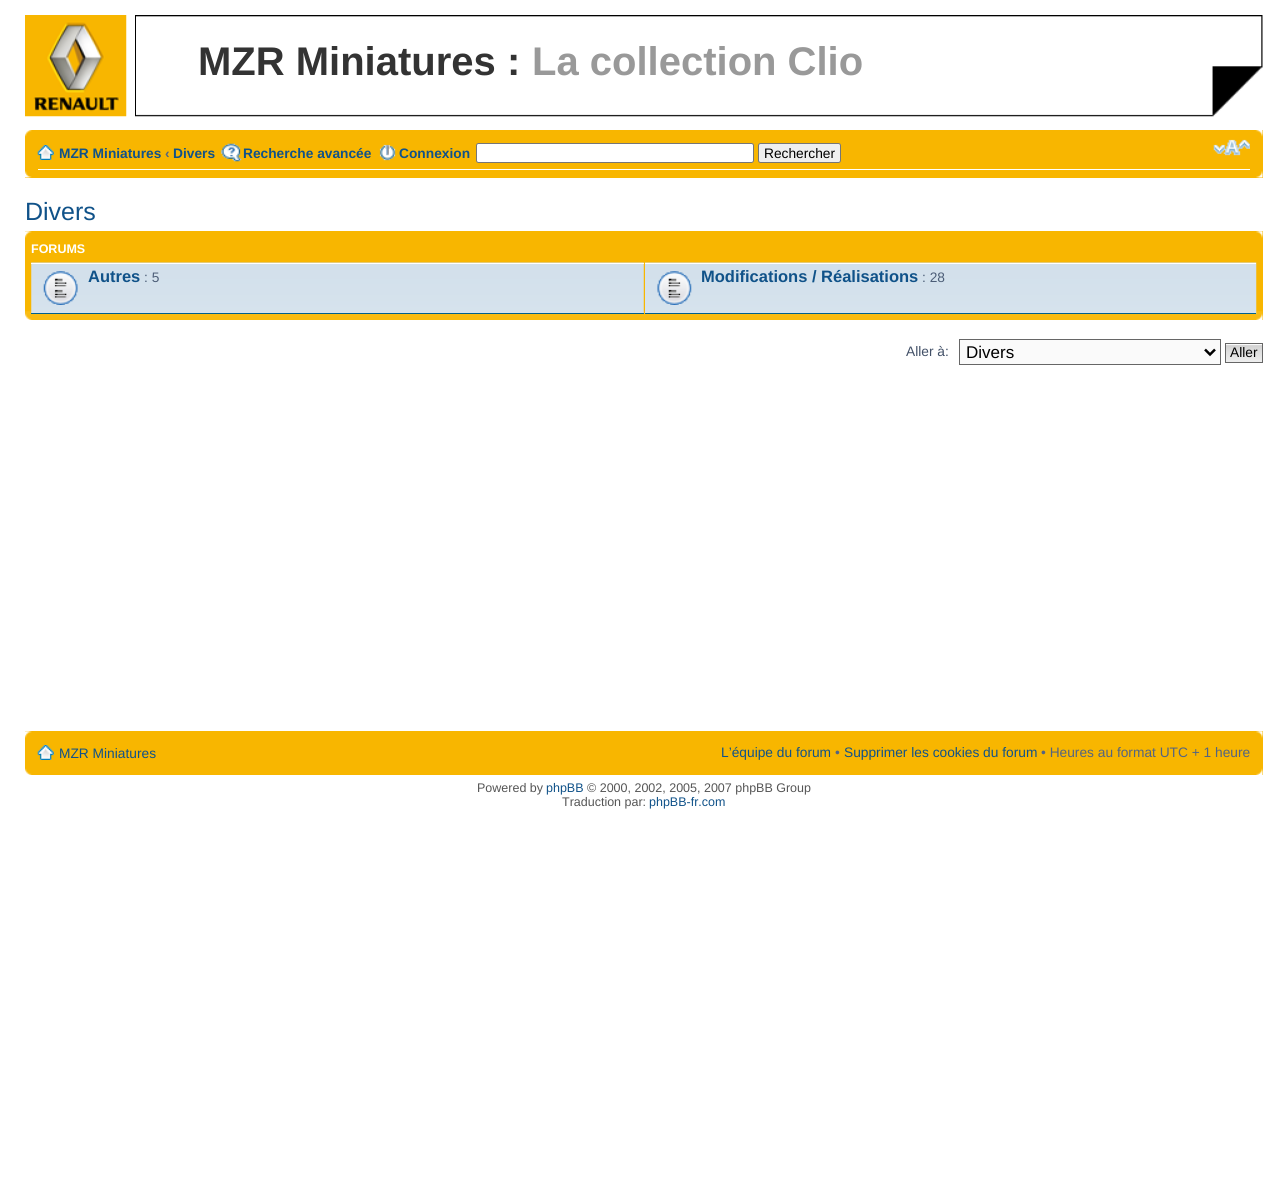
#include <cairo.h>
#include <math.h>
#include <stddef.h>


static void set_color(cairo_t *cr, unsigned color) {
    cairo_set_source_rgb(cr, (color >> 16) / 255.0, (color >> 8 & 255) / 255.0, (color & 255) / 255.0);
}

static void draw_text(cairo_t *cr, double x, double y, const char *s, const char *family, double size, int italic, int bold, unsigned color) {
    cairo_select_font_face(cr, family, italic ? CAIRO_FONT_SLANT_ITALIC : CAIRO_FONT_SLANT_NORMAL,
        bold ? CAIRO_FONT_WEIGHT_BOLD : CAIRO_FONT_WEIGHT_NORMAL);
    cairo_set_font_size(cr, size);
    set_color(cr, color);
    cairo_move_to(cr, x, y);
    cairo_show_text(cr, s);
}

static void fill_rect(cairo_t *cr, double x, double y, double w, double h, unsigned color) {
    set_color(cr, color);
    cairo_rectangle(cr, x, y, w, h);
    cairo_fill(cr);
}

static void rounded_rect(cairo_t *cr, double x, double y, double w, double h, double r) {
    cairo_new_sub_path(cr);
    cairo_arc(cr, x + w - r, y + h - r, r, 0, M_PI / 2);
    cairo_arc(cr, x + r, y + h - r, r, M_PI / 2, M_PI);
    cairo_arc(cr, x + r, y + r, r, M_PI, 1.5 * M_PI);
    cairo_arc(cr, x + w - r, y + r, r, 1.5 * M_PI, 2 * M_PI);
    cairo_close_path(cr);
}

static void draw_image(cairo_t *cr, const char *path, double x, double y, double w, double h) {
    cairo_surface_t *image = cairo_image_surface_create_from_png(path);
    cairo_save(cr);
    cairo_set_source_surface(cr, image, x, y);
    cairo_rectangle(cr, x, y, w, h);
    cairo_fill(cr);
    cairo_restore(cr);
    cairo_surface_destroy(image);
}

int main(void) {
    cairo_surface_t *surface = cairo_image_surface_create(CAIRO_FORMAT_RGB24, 1287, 1189);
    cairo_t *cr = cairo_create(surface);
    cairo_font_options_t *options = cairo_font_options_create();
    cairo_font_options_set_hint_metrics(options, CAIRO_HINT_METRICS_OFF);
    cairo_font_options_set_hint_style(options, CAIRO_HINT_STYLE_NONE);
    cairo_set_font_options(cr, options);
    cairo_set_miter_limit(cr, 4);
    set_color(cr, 0xFFFFFF);
    cairo_paint(cr);
    draw_image(cr, "assets/img1.png", 25, 15, 102, 102);
    draw_image(cr, "assets/img2.png", 135, 15, 1128, 102);
    fill_rect(cr, 135, 15, 1, 101, 0x000000);
    draw_text(cr, 198, 75, "MZR Miniatures :", "Liberation Sans", 40, 0, 1, 0x333333);
    draw_text(cr, 532, 75, "La collection Clio", "Liberation Sans", 40, 0, 1, 0x999999);
    fill_rect(cr, 25, 130, 1238, 48, 0xF8B600);
    draw_image(cr, "assets/img3.png", 25, 130, 7, 7);
    draw_image(cr, "assets/img4.png", 1255, 130, 8, 7);
    fill_rect(cr, 38, 169, 1212, 1, 0xFFFFFF);
    draw_image(cr, "assets/img5.png", 37, 145, 17, 15);
    draw_text(cr, 59, 158, "MZR Miniatures", "Liberation Sans", 13.75, 0, 1, 0x105289);
    draw_text(cr, 165, 158, "‹", "Liberation Sans", 13.75, 0, 1, 0x536482);
    draw_text(cr, 173, 158, "Divers", "Liberation Sans", 13.75, 0, 1, 0x105289);
    draw_image(cr, "assets/img6.png", 221, 143, 21, 19);
    draw_text(cr, 243, 158, "Recherche avancée", "Liberation Sans", 13.75, 0, 1, 0x105289);
    draw_image(cr, "assets/img7.png", 379, 144, 17, 17);
    draw_text(cr, 399, 158, "Connexion", "Liberation Sans", 13.75, 0, 1, 0x105289);
    set_color(cr, 0xFFFFFF);
    rounded_rect(cr, 476.5, 143.5, 277, 19, 2);
    cairo_fill_preserve(cr);
    set_color(cr, 0x767676);
    cairo_set_line_width(cr, 1);
    cairo_stroke(cr);
    set_color(cr, 0xEFEFEF);
    rounded_rect(cr, 758.5, 143.5, 82, 19, 2);
    cairo_fill_preserve(cr);
    set_color(cr, 0x767676);
    cairo_stroke(cr);
    draw_text(cr, 764, 158, "Rechercher", "Liberation Sans", 13.75, 0, 0, 0x000000);
    draw_image(cr, "assets/img8.png", 1213, 139, 37, 17);
    draw_image(cr, "assets/img9.png", 25, 171, 7, 7);
    draw_image(cr, "assets/img10.png", 1256, 171, 7, 7);
    draw_text(cr, 25, 220, "Divers", "Liberation Sans", 25, 0, 0, 0x105289);
    fill_rect(cr, 25, 231, 1238, 89, 0xF8B600);
    draw_image(cr, "assets/img11.png", 25, 311, 1238, 9);
    draw_image(cr, "assets/img12.png", 25, 231, 7, 7);
    draw_image(cr, "assets/img13.png", 1256, 231, 7, 7);
    draw_text(cr, 31, 253, "FORUMS", "Liberation Sans", 12.5, 0, 1, 0xFFFFFF);
    draw_image(cr, "assets/img14.png", 31, 262, 613, 51);
    fill_rect(cr, 31, 263, 613, 1, 0xFFFFFF);
    draw_image(cr, "assets/img18.png", 25, 313, 7, 7);
    fill_rect(cr, 31, 313, 613, 1, 0x00608F);
    draw_image(cr, "assets/img15.png", 43, 271, 35, 34);
    draw_text(cr, 88, 282, "Autres", "Liberation Sans", 16.5, 0, 1, 0x105289);
    draw_text(cr, 144, 282, ": 5", "Liberation Sans", 13.75, 0, 0, 0x4C5D77);
    draw_image(cr, "assets/img19.png", 1256, 313, 7, 7);
    draw_image(cr, "assets/img16.png", 645, 262, 612, 52);
    fill_rect(cr, 645, 263, 611, 1, 0xFFFFFF);
    fill_rect(cr, 645, 313, 611, 1, 0x00608F);
    draw_image(cr, "assets/img17.png", 657, 271, 35, 34);
    draw_text(cr, 701, 282, "Modifications / Réalisations", "Liberation Sans", 16.5, 0, 1, 0x105289);
    draw_text(cr, 922, 282, ": 28", "Liberation Sans", 13.75, 0, 0, 0x4C5D77);
    draw_text(cr, 906, 356, "Aller à:", "Liberation Sans", 13.75, 0, 0, 0x425067);
    set_color(cr, 0xFAFAFA);
    cairo_rectangle(cr, 959.5, 339.5, 261, 25);
    cairo_fill_preserve(cr);
    set_color(cr, 0x666666);
    cairo_stroke(cr);
    cairo_new_path(cr);
    cairo_move_to(cr, 1205, 349.5);
    cairo_line_to(cr, 1210, 354.5);
    cairo_line_to(cr, 1215, 349.5);
    set_color(cr, 0x000000);
    cairo_set_line_width(cr, 2.5);
    cairo_stroke(cr);
    draw_text(cr, 966, 358, "Divers", "Liberation Sans", 17, 0, 0, 0x000000);
    fill_rect(cr, 1226, 344, 36, 1, 0xFAFAFA);
    draw_image(cr, "assets/img20.png", 1226, 345, 36, 17);
    cairo_rectangle(cr, 1225.5, 343.5, 37, 19);
    set_color(cr, 0x666666);
    cairo_set_line_width(cr, 1);
    cairo_stroke(cr);
    draw_text(cr, 1230, 357, "Aller", "Liberation Sans", 13.75, 0, 0, 0x000000);
    fill_rect(cr, 25, 731, 1238, 44, 0xF8B600);
    draw_image(cr, "assets/img12.png", 25, 731, 7, 7);
    draw_image(cr, "assets/img13.png", 1256, 731, 7, 7);
    draw_image(cr, "assets/img5.png", 37, 745, 17, 15);
    draw_text(cr, 59, 758, "MZR Miniatures", "Liberation Sans", 13.75, 0, 0, 0x105289);
    draw_text(cr, 721, 757, "L’équipe du forum", "Liberation Sans", 13.75, 0, 0, 0x105289);
    draw_text(cr, 835, 757, "•", "Liberation Sans", 13.75, 0, 0, 0x536482);
    draw_text(cr, 844, 757, "Supprimer les cookies du forum", "Liberation Sans", 13.75, 0, 0, 0x105289);
    draw_text(cr, 1041, 757, "• Heures au format UTC + 1 heure", "Liberation Sans", 13.75, 0, 0, 0x536482);
    draw_image(cr, "assets/img21.png", 25, 768, 7, 7);
    draw_image(cr, "assets/img22.png", 1256, 768, 7, 7);
    draw_text(cr, 477, 792, "Powered by", "Liberation Sans", 12.5, 0, 0, 0x555555);
    draw_text(cr, 546, 792, "phpBB", "Liberation Sans", 12.5, 0, 0, 0x105289);
    draw_text(cr, 587, 792, "© 2000, 2002, 2005, 2007 phpBB Group", "Liberation Sans", 12.5, 0, 0, 0x555555);
    draw_text(cr, 562, 806, "Traduction par:", "Liberation Sans", 12.5, 0, 0, 0x555555);
    draw_text(cr, 649, 806, "phpBB-fr.com", "Liberation Sans", 12.5, 0, 0, 0x105289);
    cairo_surface_write_to_png(surface, "output.png");
    cairo_font_options_destroy(options);
    cairo_destroy(cr);
    cairo_surface_destroy(surface);
    return 0;
}
